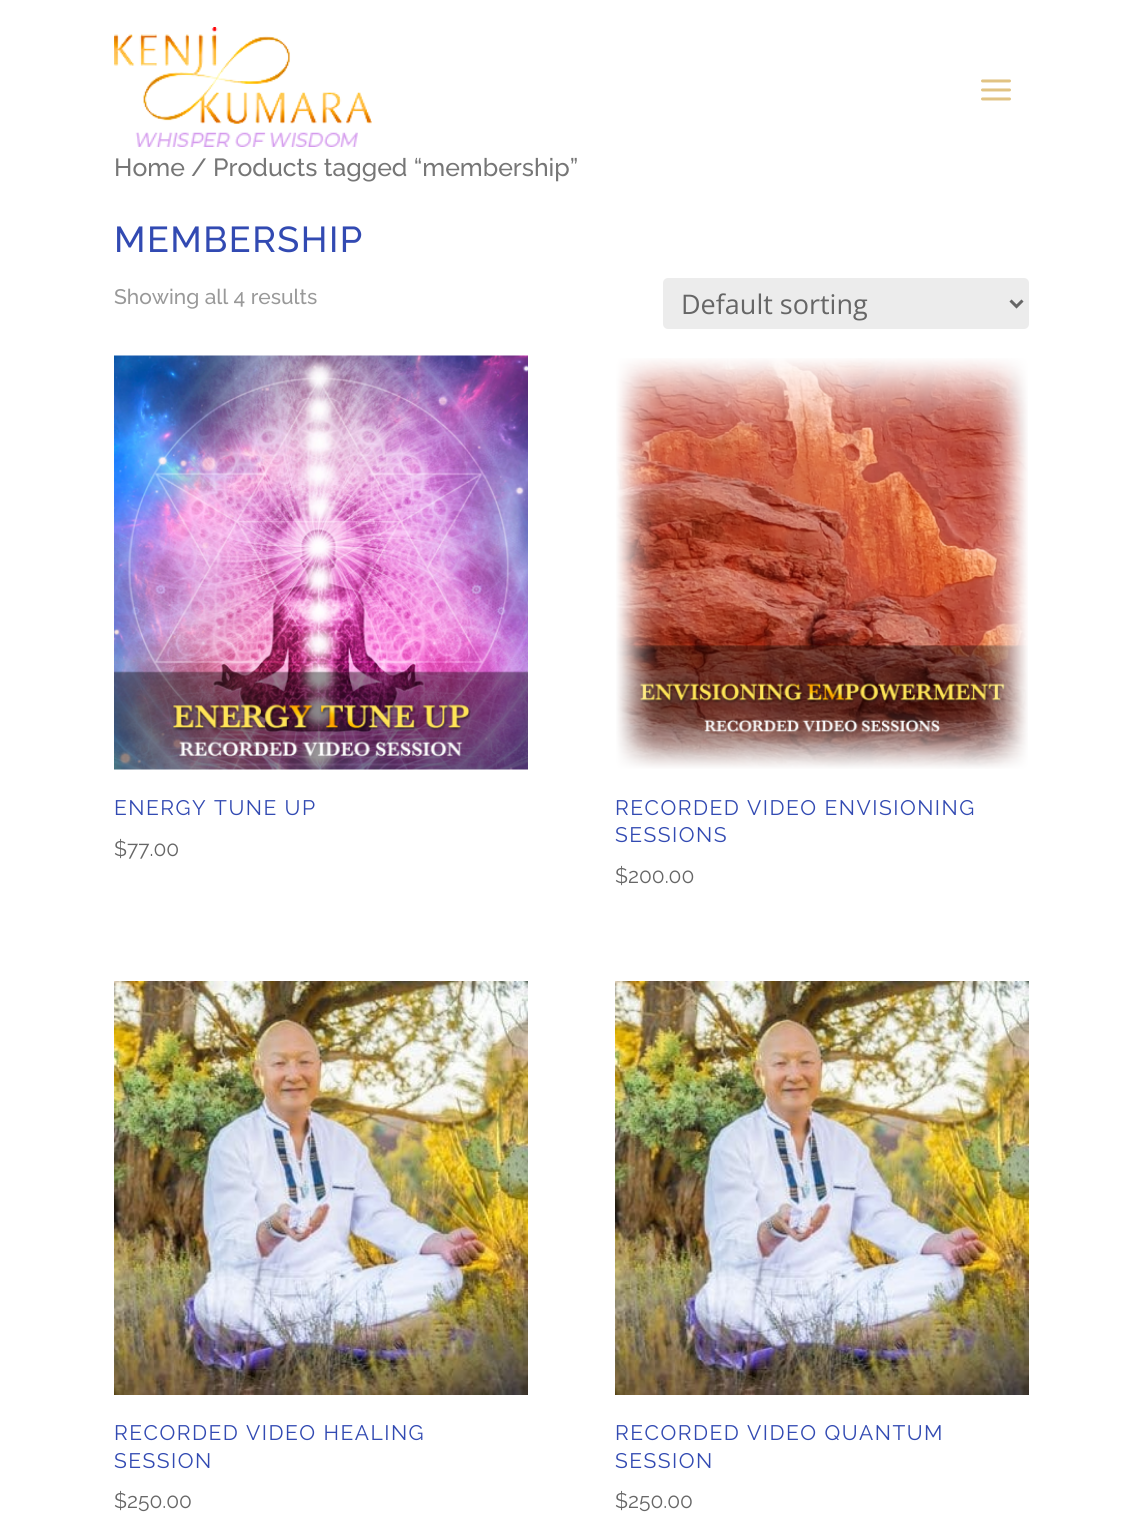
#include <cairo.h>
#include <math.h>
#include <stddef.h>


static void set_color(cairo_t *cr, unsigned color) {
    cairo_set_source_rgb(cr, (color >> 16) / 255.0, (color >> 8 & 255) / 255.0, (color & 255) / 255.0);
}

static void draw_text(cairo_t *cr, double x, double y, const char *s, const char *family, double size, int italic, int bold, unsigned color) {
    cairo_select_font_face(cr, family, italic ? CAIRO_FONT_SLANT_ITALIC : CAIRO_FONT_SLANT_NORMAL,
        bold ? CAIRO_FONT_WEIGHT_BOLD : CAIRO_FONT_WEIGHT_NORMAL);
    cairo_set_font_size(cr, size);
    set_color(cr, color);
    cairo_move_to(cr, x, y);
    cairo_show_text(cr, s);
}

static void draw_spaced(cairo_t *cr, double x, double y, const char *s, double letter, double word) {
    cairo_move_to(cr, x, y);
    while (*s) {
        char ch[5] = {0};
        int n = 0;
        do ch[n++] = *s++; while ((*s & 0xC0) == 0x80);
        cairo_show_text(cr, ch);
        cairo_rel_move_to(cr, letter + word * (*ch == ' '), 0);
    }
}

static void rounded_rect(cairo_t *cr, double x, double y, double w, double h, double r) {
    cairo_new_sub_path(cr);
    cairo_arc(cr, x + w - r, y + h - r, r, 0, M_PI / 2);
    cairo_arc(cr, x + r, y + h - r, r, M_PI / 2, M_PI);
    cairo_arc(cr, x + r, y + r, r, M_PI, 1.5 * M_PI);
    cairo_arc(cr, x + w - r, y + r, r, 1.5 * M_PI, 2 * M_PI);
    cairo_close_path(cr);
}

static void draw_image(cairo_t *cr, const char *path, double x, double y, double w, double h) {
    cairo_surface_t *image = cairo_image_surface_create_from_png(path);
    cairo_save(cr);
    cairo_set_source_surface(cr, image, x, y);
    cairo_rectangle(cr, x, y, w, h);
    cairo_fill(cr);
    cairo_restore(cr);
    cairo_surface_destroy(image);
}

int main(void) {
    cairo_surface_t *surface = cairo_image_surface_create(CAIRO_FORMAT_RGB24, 1142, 1534);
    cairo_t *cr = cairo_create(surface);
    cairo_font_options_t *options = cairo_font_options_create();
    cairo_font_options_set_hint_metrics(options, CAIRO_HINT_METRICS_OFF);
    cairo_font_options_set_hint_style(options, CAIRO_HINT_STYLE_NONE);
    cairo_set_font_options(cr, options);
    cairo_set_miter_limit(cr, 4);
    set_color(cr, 0xFFFFFF);
    cairo_paint(cr);
    draw_image(cr, "assets/img1.png", 114, 27, 258, 120);
    draw_image(cr, "assets/img2.png", 981, 79, 30, 22);
    draw_text(cr, 114, 176, "Home / Products tagged “membership”", "Raleway Medium", 24.8, 0, 0, 0x767676);
    cairo_set_font_size(cr, 36);
    set_color(cr, 0x324AB2);
    draw_spaced(cr, 114, 252, "MEMBERSHIP", 1.5, 0);
    draw_text(cr, 114, 304, "Showing all 4 results", "Raleway Medium", 21, 0, 0, 0x999999);
    set_color(cr, 0xECECEC);
    rounded_rect(cr, 663, 278, 366, 51, 5);
    cairo_fill(cr);
    cairo_new_path(cr);
    cairo_move_to(cr, 1010.5, 300.5);
    cairo_line_to(cr, 1016.5, 306.5);
    cairo_line_to(cr, 1022.5, 300.5);
    set_color(cr, 0x666666);
    cairo_set_line_width(cr, 3);
    cairo_stroke(cr);
    draw_text(cr, 681, 314, "Default sorting", "Open Sans", 27, 0, 0, 0x666666);
    draw_image(cr, "assets/img3.png", 114, 355, 414, 415);
    cairo_select_font_face(cr, "Raleway", CAIRO_FONT_SLANT_NORMAL, CAIRO_FONT_WEIGHT_NORMAL);
    cairo_set_font_size(cr, 21);
    set_color(cr, 0x324AB2);
    draw_spaced(cr, 114, 815, "ENERGY TUNE UP", 1.5, 0);
    draw_text(cr, 114, 856, "$77.00", "Raleway", 21, 0, 0, 0x666666);
    draw_image(cr, "assets/img4.png", 616, 358, 412, 411);
    set_color(cr, 0x324AB2);
    draw_spaced(cr, 615, 815, "RECORDED VIDEO ENVISIONING", 1.5, 0);
    draw_spaced(cr, 615, 842, "SESSIONS", 1.5, 0);
    draw_text(cr, 615, 883, "$200.00", "Raleway", 21, 0, 0, 0x666666);
    draw_image(cr, "assets/img5.png", 114, 981, 414, 414);
    set_color(cr, 0x324AB2);
    draw_spaced(cr, 114, 1440, "RECORDED VIDEO HEALING", 1.5, 0);
    draw_spaced(cr, 114, 1468, "SESSION", 1.5, 0);
    draw_text(cr, 114, 1508, "$250.00", "Raleway", 21, 0, 0, 0x666666);
    draw_image(cr, "assets/img6.png", 615, 981, 414, 414);
    set_color(cr, 0x324AB2);
    draw_spaced(cr, 615, 1440, "RECORDED VIDEO QUANTUM", 1.5, 0);
    draw_spaced(cr, 615, 1468, "SESSION", 1.5, 0);
    draw_text(cr, 615, 1508, "$250.00", "Raleway", 21, 0, 0, 0x666666);
    cairo_surface_write_to_png(surface, "output.png");
    cairo_font_options_destroy(options);
    cairo_destroy(cr);
    cairo_surface_destroy(surface);
    return 0;
}
